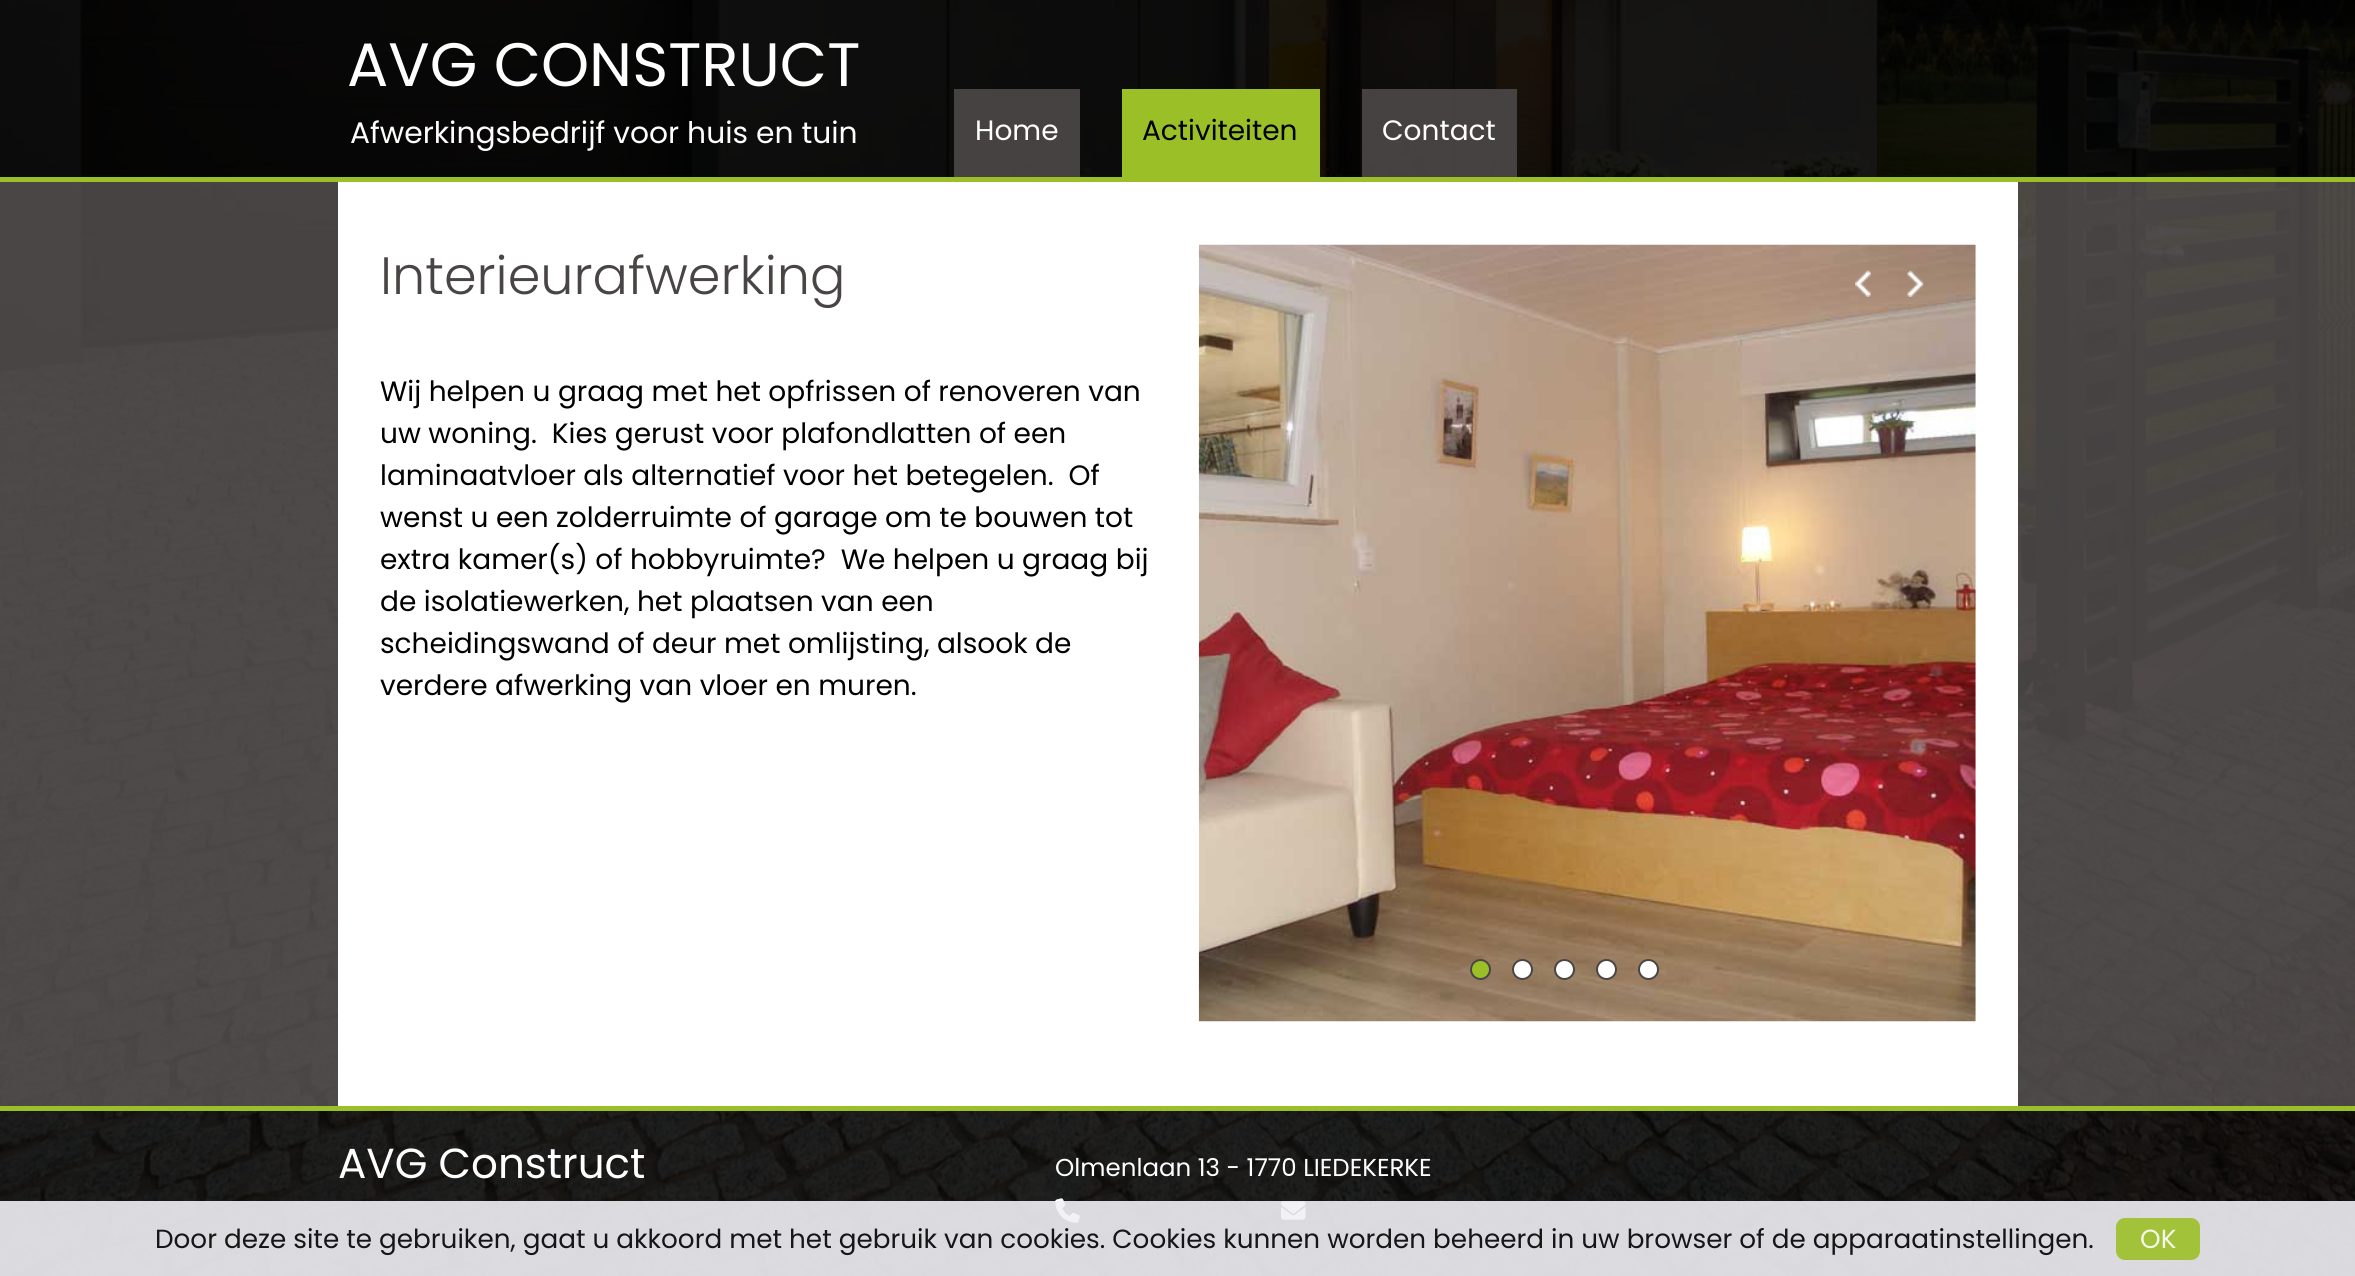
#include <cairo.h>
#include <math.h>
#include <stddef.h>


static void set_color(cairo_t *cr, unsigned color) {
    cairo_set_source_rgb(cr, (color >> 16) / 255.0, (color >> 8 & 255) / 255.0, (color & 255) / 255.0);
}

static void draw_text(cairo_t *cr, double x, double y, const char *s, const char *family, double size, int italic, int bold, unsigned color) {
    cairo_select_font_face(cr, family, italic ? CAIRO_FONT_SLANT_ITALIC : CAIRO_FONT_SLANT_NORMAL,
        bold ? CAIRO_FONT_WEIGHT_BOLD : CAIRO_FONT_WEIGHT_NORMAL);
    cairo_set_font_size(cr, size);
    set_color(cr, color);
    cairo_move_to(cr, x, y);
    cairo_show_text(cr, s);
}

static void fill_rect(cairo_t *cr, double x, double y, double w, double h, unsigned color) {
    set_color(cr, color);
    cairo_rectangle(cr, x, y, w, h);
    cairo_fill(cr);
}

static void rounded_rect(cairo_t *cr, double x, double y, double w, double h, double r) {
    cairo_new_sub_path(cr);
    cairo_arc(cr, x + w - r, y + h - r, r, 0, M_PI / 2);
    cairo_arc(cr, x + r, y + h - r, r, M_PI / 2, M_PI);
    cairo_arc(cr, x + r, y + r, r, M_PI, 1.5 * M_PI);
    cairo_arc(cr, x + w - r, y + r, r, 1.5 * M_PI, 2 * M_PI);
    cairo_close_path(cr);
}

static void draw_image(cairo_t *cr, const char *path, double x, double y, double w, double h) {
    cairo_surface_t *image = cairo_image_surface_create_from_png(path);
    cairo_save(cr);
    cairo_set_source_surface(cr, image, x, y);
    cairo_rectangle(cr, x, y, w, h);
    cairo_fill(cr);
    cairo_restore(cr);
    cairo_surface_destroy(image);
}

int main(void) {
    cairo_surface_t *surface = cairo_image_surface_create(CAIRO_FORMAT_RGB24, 2355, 1276);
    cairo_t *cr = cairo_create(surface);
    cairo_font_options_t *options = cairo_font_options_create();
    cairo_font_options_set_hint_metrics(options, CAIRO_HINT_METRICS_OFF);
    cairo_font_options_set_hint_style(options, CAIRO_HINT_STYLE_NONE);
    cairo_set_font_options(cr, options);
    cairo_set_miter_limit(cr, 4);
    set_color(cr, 0xFFFFFF);
    cairo_paint(cr);
    draw_image(cr, "assets/img1.png", 0, 0, 2355, 1276);
    cairo_set_source_rgba(cr, 0, 0, 0, 0.9);
    cairo_rectangle(cr, 0, 0, 2355, 177);
    cairo_fill(cr);
    draw_text(cr, 347, 86, "AVG CONSTRUCT", "Poppins", 61.25, 0, 0, 0xFFFFFF);
    draw_text(cr, 350, 143, "Afwerkingsbedrijf voor huis en tuin", "Poppins", 29.75, 0, 0, 0xFFFFFF);
    cairo_set_source_rgba(cr, 0.286, 0.271, 0.271, 0.95);
    cairo_rectangle(cr, 954, 89, 126, 88);
    cairo_fill(cr);
    draw_text(cr, 975, 140, "Home", "Poppins", 28, 0, 0, 0xFFFFFF);
    fill_rect(cr, 1122, 89, 198, 88, 0x9BBF27);
    draw_text(cr, 1142, 140, "Activiteiten", "Poppins", 28, 0, 0, 0x000000);
    cairo_set_source_rgba(cr, 0.286, 0.271, 0.271, 0.95);
    cairo_rectangle(cr, 1362, 89, 155, 88);
    cairo_fill(cr);
    draw_text(cr, 1382, 140, "Contact", "Poppins", 28, 0, 0, 0xFFFFFF);
    fill_rect(cr, 0, 177, 2355, 5, 0x9BBF27);
    cairo_set_source_rgba(cr, 0.286, 0.271, 0.271, 0.95);
    cairo_rectangle(cr, 0, 182, 2355, 924);
    cairo_fill(cr);
    fill_rect(cr, 338, 182, 1680, 924, 0xFFFFFF);
    draw_text(cr, 380, 294, "Interieurafwerking", "Poppins Light", 52.5, 0, 0, 0x494545);
    draw_text(cr, 380, 401, "Wij helpen u graag met het opfrissen of renoveren van", "Poppins", 28, 0, 0, 0x000000);
    draw_text(cr, 380, 443, "uw woning.  Kies gerust voor plafondlatten of een", "Poppins", 28, 0, 0, 0x000000);
    draw_text(cr, 380, 485, "laminaatvloer als alternatief voor het betegelen.  Of", "Poppins", 28, 0, 0, 0x000000);
    draw_text(cr, 380, 527, "wenst u een zolderruimte of garage om te bouwen tot", "Poppins", 28, 0, 0, 0x000000);
    draw_text(cr, 380, 569, "extra kamer(s) of hobbyruimte?  We helpen u graag bij", "Poppins", 28, 0, 0, 0x000000);
    draw_text(cr, 380, 611, "de isolatiewerken, het plaatsen van een", "Poppins", 28, 0, 0, 0x000000);
    draw_text(cr, 380, 653, "scheidingswand of deur met omlijsting, alsook de", "Poppins", 28, 0, 0, 0x000000);
    draw_text(cr, 380, 695, "verdere afwerking van vloer en muren.", "Poppins", 28, 0, 0, 0x000000);
    draw_image(cr, "assets/img2.png", 1198, 244, 778, 778);
    draw_image(cr, "assets/img3.png", 1855, 270, 16, 27);
    draw_image(cr, "assets/img4.png", 1907, 270, 17, 27);
    set_color(cr, 0x9BBF27);
    cairo_arc(cr, 1480.5, 969.5, 9.5, 0, 2 * M_PI);
    cairo_fill_preserve(cr);
    set_color(cr, 0x494545);
    cairo_stroke(cr);
    set_color(cr, 0xFFFFFF);
    cairo_arc(cr, 1522.5, 969.5, 9.5, 0, 2 * M_PI);
    cairo_fill_preserve(cr);
    set_color(cr, 0x494545);
    cairo_stroke(cr);
    set_color(cr, 0xFFFFFF);
    cairo_arc(cr, 1564.5, 969.5, 9.5, 0, 2 * M_PI);
    cairo_fill_preserve(cr);
    set_color(cr, 0x494545);
    cairo_stroke(cr);
    set_color(cr, 0xFFFFFF);
    cairo_arc(cr, 1606.5, 969.5, 9.5, 0, 2 * M_PI);
    cairo_fill_preserve(cr);
    set_color(cr, 0x494545);
    cairo_stroke(cr);
    set_color(cr, 0xFFFFFF);
    cairo_arc(cr, 1648.5, 969.5, 9.5, 0, 2 * M_PI);
    cairo_fill_preserve(cr);
    set_color(cr, 0x494545);
    cairo_stroke(cr);
    cairo_set_source_rgba(cr, 0, 0, 0, 0.85);
    cairo_rectangle(cr, 0, 1111, 2355, 165);
    cairo_fill(cr);
    fill_rect(cr, 0, 1106, 2355, 5, 0x9BBF27);
    draw_text(cr, 338, 1178, "AVG Construct", "Poppins", 42, 0, 0, 0xFFFFFF);
    draw_text(cr, 1055, 1176, "Olmenlaan 13 - 1770 LIEDEKERKE", "Poppins", 24.5, 0, 0, 0xFFFFFF);
    draw_image(cr, "assets/img5.png", 1055, 1198, 25, 25);
    draw_image(cr, "assets/img6.png", 1281, 1201, 25, 19);
    cairo_set_source_rgba(cr, 0.941, 0.941, 0.961, 0.9);
    cairo_rectangle(cr, 0, 1201, 2355, 75);
    cairo_fill(cr);
    draw_text(cr, 155, 1248, "Door deze site te gebruiken, gaat u akkoord met het gebruik van cookies. Cookies kunnen worden beheerd in uw browser of de apparaatinstellingen.", "Poppins", 26.25, 0, 0, 0x161616);
    set_color(cr, 0xA1C239);
    rounded_rect(cr, 2116, 1218, 84, 42, 9);
    cairo_fill(cr);
    draw_text(cr, 2140, 1248, "OK", "Poppins", 26.25, 0, 0, 0xF6F9EB);
    cairo_surface_write_to_png(surface, "output.png");
    cairo_font_options_destroy(options);
    cairo_destroy(cr);
    cairo_surface_destroy(surface);
    return 0;
}
